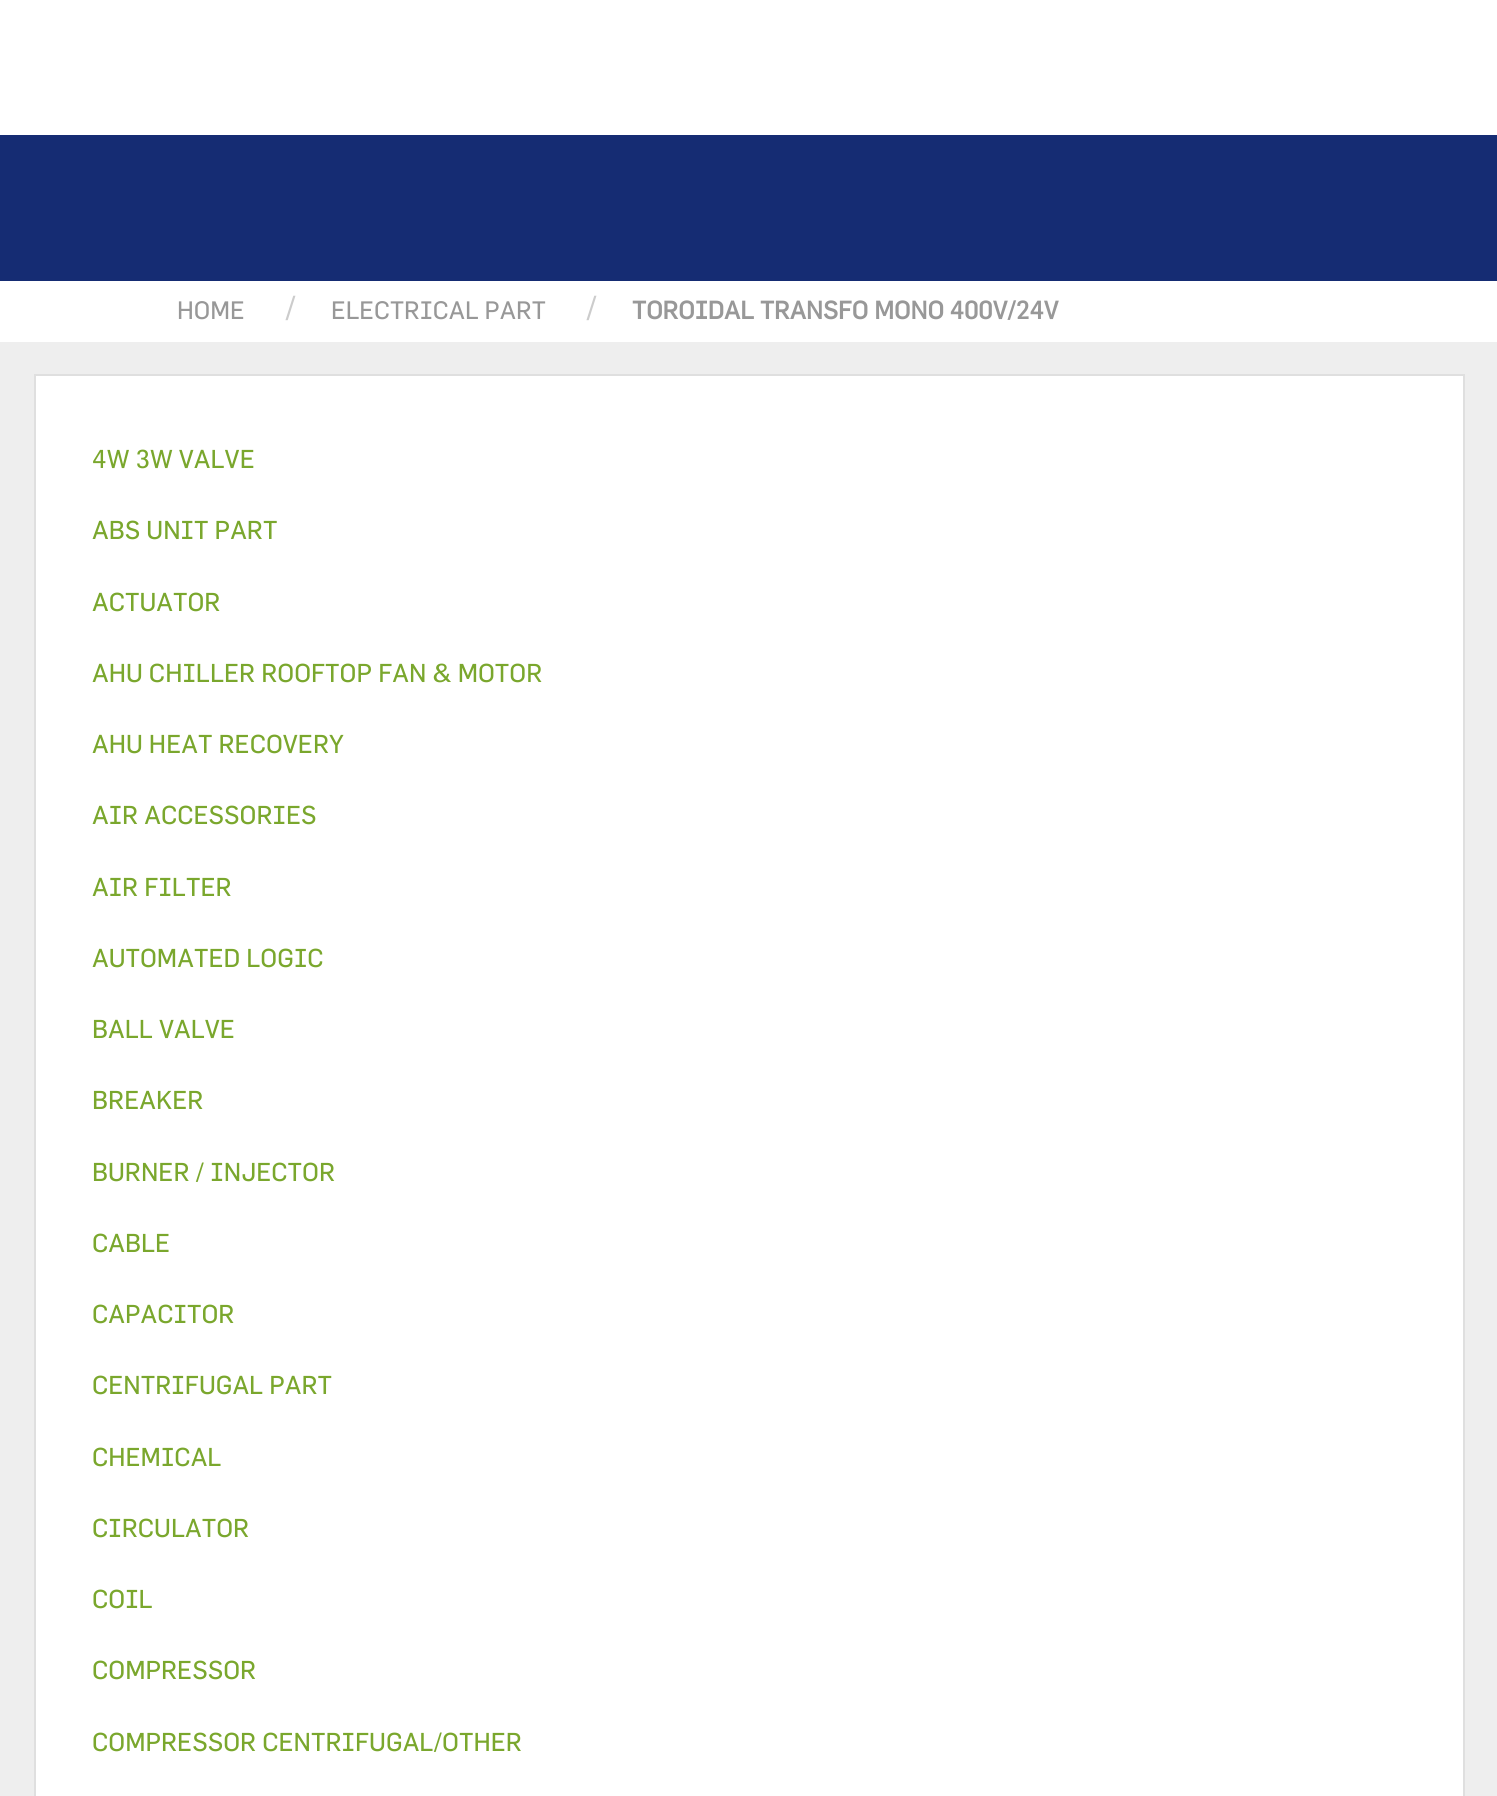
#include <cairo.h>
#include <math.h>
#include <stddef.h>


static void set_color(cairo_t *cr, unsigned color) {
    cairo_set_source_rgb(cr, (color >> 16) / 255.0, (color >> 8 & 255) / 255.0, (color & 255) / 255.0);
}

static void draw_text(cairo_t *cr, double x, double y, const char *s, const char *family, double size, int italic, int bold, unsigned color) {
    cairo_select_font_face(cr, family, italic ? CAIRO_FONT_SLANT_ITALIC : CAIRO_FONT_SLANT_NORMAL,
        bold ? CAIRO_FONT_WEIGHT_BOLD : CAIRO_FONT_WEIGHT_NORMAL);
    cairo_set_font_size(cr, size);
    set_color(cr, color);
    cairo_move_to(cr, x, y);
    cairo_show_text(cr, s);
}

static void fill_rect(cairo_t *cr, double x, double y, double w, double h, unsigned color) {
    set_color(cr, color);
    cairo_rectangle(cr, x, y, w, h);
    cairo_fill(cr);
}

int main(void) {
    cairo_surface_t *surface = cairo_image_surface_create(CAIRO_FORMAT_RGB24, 1497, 1796);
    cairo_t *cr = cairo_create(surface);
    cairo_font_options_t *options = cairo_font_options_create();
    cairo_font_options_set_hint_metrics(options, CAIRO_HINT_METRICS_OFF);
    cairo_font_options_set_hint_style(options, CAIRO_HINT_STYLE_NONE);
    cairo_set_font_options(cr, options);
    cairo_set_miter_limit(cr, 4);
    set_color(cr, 0xEEEEEE);
    cairo_paint(cr);
    fill_rect(cr, 0, 0, 1497, 135, 0xFFFFFF);
    fill_rect(cr, 0, 135, 1497, 146, 0x152C73);
    fill_rect(cr, 0, 281, 1497, 61, 0xFFFFFF);
    draw_text(cr, 177, 319, "HOME", "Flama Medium", 24.75, 0, 0, 0x989898);
    draw_text(cr, 285, 319, "/", "Flama Medium", 32, 0, 0, 0xCCCCCC);
    draw_text(cr, 331, 319, "ELECTRICAL PART", "Flama Medium", 24.75, 0, 0, 0x989898);
    draw_text(cr, 586, 319, "/", "Flama Medium", 32, 0, 0, 0xCCCCCC);
    draw_text(cr, 632, 319, "TOROIDAL TRANSFO MONO 400V/24V", "Flama", 24.75, 0, 1, 0x989898);
    set_color(cr, 0xFFFFFF);
    cairo_rectangle(cr, 35, 375, 1429, 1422);
    cairo_fill_preserve(cr);
    set_color(cr, 0xDFDFDF);
    cairo_stroke(cr);
    draw_text(cr, 92, 468, "4W 3W VALVE", "Flama Medium", 25.4, 0, 0, 0x7AA72D);
    draw_text(cr, 92, 539, "ABS UNIT PART", "Flama Medium", 25.4, 0, 0, 0x7AA72D);
    draw_text(cr, 92, 611, "ACTUATOR", "Flama Medium", 25.4, 0, 0, 0x7AA72D);
    draw_text(cr, 92, 682, "AHU CHILLER ROOFTOP FAN & MOTOR", "Flama Medium", 25.4, 0, 0, 0x7AA72D);
    draw_text(cr, 92, 753, "AHU HEAT RECOVERY", "Flama Medium", 25.4, 0, 0, 0x7AA72D);
    draw_text(cr, 92, 824, "AIR ACCESSORIES", "Flama Medium", 25.4, 0, 0, 0x7AA72D);
    draw_text(cr, 92, 896, "AIR FILTER", "Flama Medium", 25.4, 0, 0, 0x7AA72D);
    draw_text(cr, 92, 967, "AUTOMATED LOGIC", "Flama Medium", 25.4, 0, 0, 0x7AA72D);
    draw_text(cr, 92, 1038, "BALL VALVE", "Flama Medium", 25.4, 0, 0, 0x7AA72D);
    draw_text(cr, 92, 1109, "BREAKER", "Flama Medium", 25.4, 0, 0, 0x7AA72D);
    draw_text(cr, 92, 1181, "BURNER / INJECTOR", "Flama Medium", 25.4, 0, 0, 0x7AA72D);
    draw_text(cr, 92, 1252, "CABLE", "Flama Medium", 25.4, 0, 0, 0x7AA72D);
    draw_text(cr, 92, 1323, "CAPACITOR", "Flama Medium", 25.4, 0, 0, 0x7AA72D);
    draw_text(cr, 92, 1394, "CENTRIFUGAL PART", "Flama Medium", 25.4, 0, 0, 0x7AA72D);
    draw_text(cr, 92, 1466, "CHEMICAL", "Flama Medium", 25.4, 0, 0, 0x7AA72D);
    draw_text(cr, 92, 1537, "CIRCULATOR", "Flama Medium", 25.4, 0, 0, 0x7AA72D);
    draw_text(cr, 92, 1608, "COIL", "Flama Medium", 25.4, 0, 0, 0x7AA72D);
    draw_text(cr, 92, 1679, "COMPRESSOR", "Flama Medium", 25.4, 0, 0, 0x7AA72D);
    draw_text(cr, 92, 1751, "COMPRESSOR CENTRIFUGAL/OTHER", "Flama Medium", 25.4, 0, 0, 0x7AA72D);
    cairo_surface_write_to_png(surface, "output.png");
    cairo_font_options_destroy(options);
    cairo_destroy(cr);
    cairo_surface_destroy(surface);
    return 0;
}
